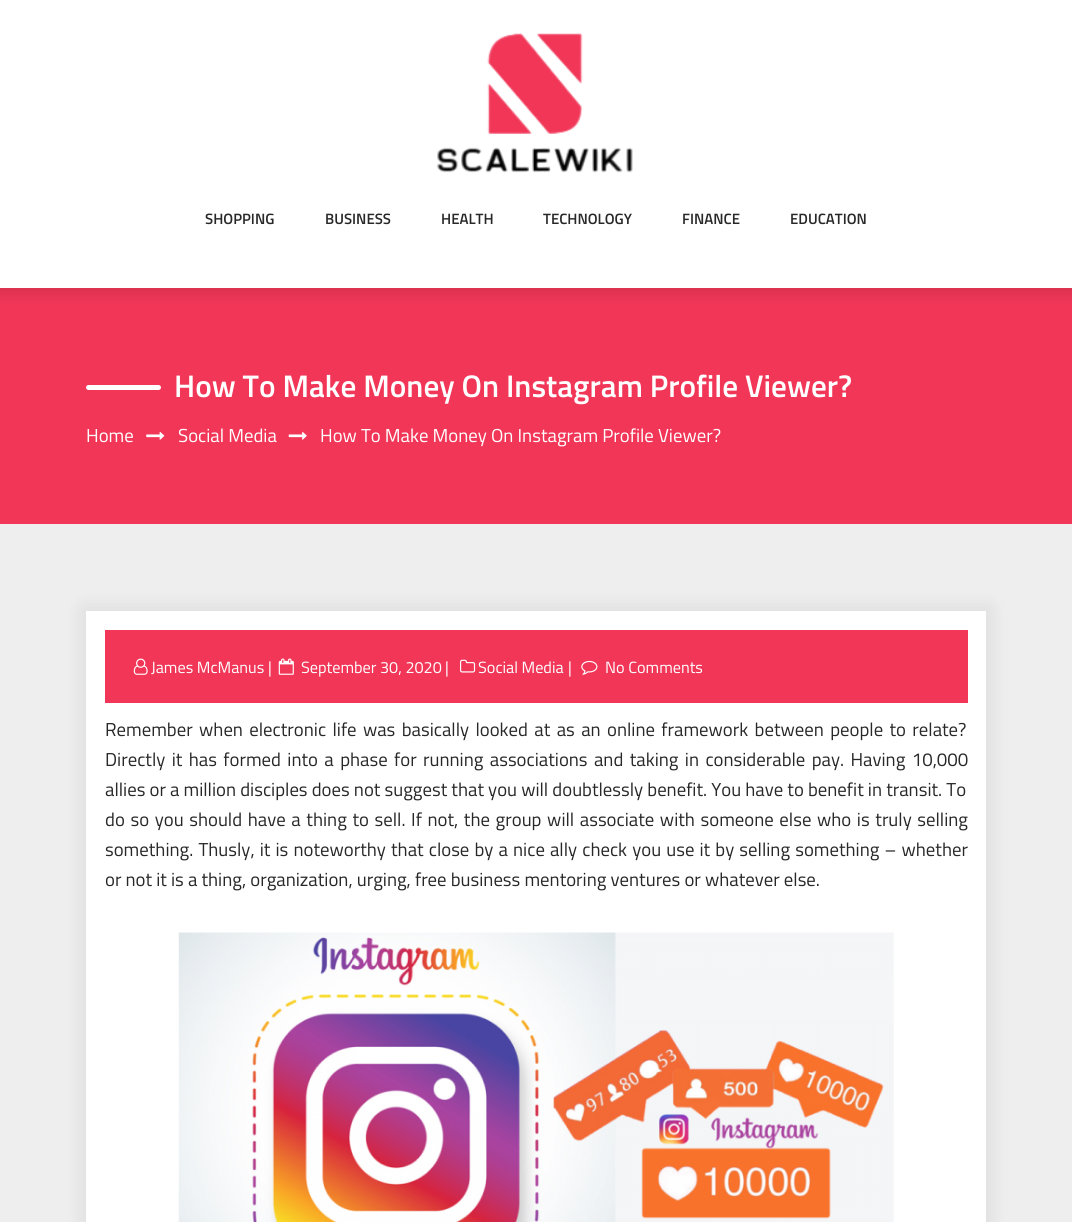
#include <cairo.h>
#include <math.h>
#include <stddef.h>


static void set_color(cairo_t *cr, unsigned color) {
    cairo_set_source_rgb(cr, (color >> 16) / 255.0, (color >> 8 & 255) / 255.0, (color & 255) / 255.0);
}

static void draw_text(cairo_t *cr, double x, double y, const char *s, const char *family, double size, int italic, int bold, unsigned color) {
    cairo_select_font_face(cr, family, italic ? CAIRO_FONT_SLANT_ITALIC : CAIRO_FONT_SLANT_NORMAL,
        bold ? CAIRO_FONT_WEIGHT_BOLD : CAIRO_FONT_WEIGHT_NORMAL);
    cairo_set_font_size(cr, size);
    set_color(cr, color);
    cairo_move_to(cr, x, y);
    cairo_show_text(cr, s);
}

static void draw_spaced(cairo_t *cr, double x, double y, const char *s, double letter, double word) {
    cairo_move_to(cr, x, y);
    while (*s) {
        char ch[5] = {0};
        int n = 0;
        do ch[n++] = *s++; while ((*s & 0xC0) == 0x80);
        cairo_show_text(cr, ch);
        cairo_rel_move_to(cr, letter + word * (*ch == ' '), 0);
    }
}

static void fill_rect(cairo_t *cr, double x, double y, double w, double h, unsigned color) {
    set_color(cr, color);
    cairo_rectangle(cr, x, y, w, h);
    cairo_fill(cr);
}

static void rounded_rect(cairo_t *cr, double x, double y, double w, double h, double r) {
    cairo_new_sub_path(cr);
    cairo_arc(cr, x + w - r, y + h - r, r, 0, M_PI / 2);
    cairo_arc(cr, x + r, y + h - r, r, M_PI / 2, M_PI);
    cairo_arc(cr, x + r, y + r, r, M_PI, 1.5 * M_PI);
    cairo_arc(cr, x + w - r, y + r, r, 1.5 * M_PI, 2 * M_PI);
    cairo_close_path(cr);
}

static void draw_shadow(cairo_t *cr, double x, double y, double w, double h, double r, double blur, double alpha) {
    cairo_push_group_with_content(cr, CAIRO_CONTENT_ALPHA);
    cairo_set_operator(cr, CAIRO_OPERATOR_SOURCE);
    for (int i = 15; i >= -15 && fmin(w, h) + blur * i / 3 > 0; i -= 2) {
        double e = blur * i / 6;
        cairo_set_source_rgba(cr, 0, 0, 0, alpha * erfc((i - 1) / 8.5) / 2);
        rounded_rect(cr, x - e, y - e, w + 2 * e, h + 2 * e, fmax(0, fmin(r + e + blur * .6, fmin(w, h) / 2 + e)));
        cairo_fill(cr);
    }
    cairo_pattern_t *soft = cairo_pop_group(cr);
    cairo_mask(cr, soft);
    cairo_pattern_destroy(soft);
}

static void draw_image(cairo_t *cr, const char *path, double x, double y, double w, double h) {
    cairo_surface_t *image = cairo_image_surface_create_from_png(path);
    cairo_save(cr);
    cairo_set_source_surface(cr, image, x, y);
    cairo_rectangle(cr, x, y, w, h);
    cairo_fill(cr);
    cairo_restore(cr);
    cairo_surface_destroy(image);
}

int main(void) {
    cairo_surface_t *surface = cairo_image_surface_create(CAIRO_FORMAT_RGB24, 1072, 1222);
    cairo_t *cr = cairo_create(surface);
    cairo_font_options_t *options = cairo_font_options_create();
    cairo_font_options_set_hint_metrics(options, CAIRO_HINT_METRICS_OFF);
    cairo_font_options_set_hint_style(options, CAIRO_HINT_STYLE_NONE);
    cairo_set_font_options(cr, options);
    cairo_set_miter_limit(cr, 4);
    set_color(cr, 0xEEEEEE);
    cairo_paint(cr);
    fill_rect(cr, 0, 288, 1072, 236, 0xF13658);
    set_color(cr, 0x000000);
    draw_shadow(cr, -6, -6, 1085, 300, 0, 6, 0.1);
    fill_rect(cr, 0, 0, 1072, 288, 0xFFFFFF);
    draw_image(cr, "assets/img1.png", 437, 33, 196, 140);
    draw_text(cr, 205, 224, "SHOPPING", "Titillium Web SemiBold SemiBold", 15, 0, 0, 0x282828);
    draw_text(cr, 325, 224, "BUSINESS", "Titillium Web SemiBold SemiBold", 15, 0, 0, 0x282828);
    draw_text(cr, 441, 224, "HEALTH", "Titillium Web SemiBold SemiBold", 15, 0, 0, 0x282828);
    draw_text(cr, 543, 224, "TECHNOLOGY", "Titillium Web SemiBold SemiBold", 15, 0, 0, 0x282828);
    draw_text(cr, 682, 224, "FINANCE", "Titillium Web SemiBold SemiBold", 15, 0, 0, 0x282828);
    draw_text(cr, 790, 224, "EDUCATION", "Titillium Web SemiBold SemiBold", 15, 0, 0, 0x282828);
    set_color(cr, 0xFFFFFF);
    rounded_rect(cr, 86, 385, 75, 5, 2.5);
    cairo_fill(cr);
    draw_text(cr, 174, 397, "How To Make Money On Instagram Profile Viewer?", "Titillium Web SemiBold SemiBold", 31.25, 0, 0, 0xFFFFFF);
    draw_text(cr, 86, 442, "Home", "Titillium Web", 18.75, 0, 0, 0xFFFFFF);
    draw_image(cr, "assets/img2.png", 146, 431, 19, 9);
    draw_text(cr, 178, 442, "Social Media", "Titillium Web", 18.75, 0, 0, 0xFFFFFF);
    draw_image(cr, "assets/img3.png", 288, 431, 19, 9);
    draw_text(cr, 320, 442, "How To Make Money On Instagram Profile Viewer?", "Titillium Web", 18.75, 0, 0, 0xFFFFFF);
    set_color(cr, 0x000000);
    draw_shadow(cr, 83, 608, 907, 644, 0, 10, 0.08);
    fill_rect(cr, 86, 611, 900, 611, 0xFFFFFF);
    fill_rect(cr, 105, 630, 863, 73, 0xF13658);
    draw_image(cr, "assets/img4.png", 133, 658, 15, 17);
    draw_text(cr, 151, 673, "James McManus", "Titillium Web", 16.25, 0, 0, 0xFFFFFF);
    draw_text(cr, 268, 673, "|", "Titillium Web", 16.25, 0, 0, 0xFFFFFF);
    draw_image(cr, "assets/img5.png", 278, 658, 16, 17);
    draw_text(cr, 301, 673, "September 30, 2020", "Titillium Web", 16.25, 0, 0, 0xFFFFFF);
    draw_text(cr, 445, 673, "|", "Titillium Web", 16.25, 0, 0, 0xFFFFFF);
    draw_image(cr, "assets/img6.png", 460, 659, 16, 14);
    draw_text(cr, 478, 673, "Social Media", "Titillium Web", 16.25, 0, 0, 0xFFFFFF);
    draw_text(cr, 568, 673, "|", "Titillium Web", 16.25, 0, 0, 0xFFFFFF);
    draw_image(cr, "assets/img7.png", 581, 660, 17, 15);
    draw_text(cr, 605, 673, "No Comments", "Titillium Web", 16.25, 0, 0, 0xFFFFFF);
    cairo_set_font_size(cr, 18.75);
    set_color(cr, 0x282828);
    draw_spaced(cr, 105, 736, "Remember when electronic life was basically looked at as an online framework between people to relate?", 0, 2.25);
    draw_spaced(cr, 105, 766, "Directly it has formed into a phase for running associations and taking in considerable pay. Having 10,000", 0, 2.25);
    draw_text(cr, 105, 796, "allies or a million disciples does not suggest that you will doubtlessly benefit. You have to benefit in transit. To", "Titillium Web", 18.75, 0, 0, 0x282828);
    draw_spaced(cr, 105, 826, "do so you should have a thing to sell. If not, the group will associate with someone else who is truly selling", 0, 1.5);
    draw_spaced(cr, 105, 856, "something. Thusly, it is noteworthy that close by a nice ally check you use it by selling something – whether", 0, 1);
    draw_text(cr, 105, 886, "or not it is a thing, organization, urging, free business mentoring ventures or whatever else.", "Titillium Web", 18.75, 0, 0, 0x282828);
    draw_image(cr, "assets/img8.png", 178, 932, 716, 290);
    cairo_surface_write_to_png(surface, "output.png");
    cairo_font_options_destroy(options);
    cairo_destroy(cr);
    cairo_surface_destroy(surface);
    return 0;
}
